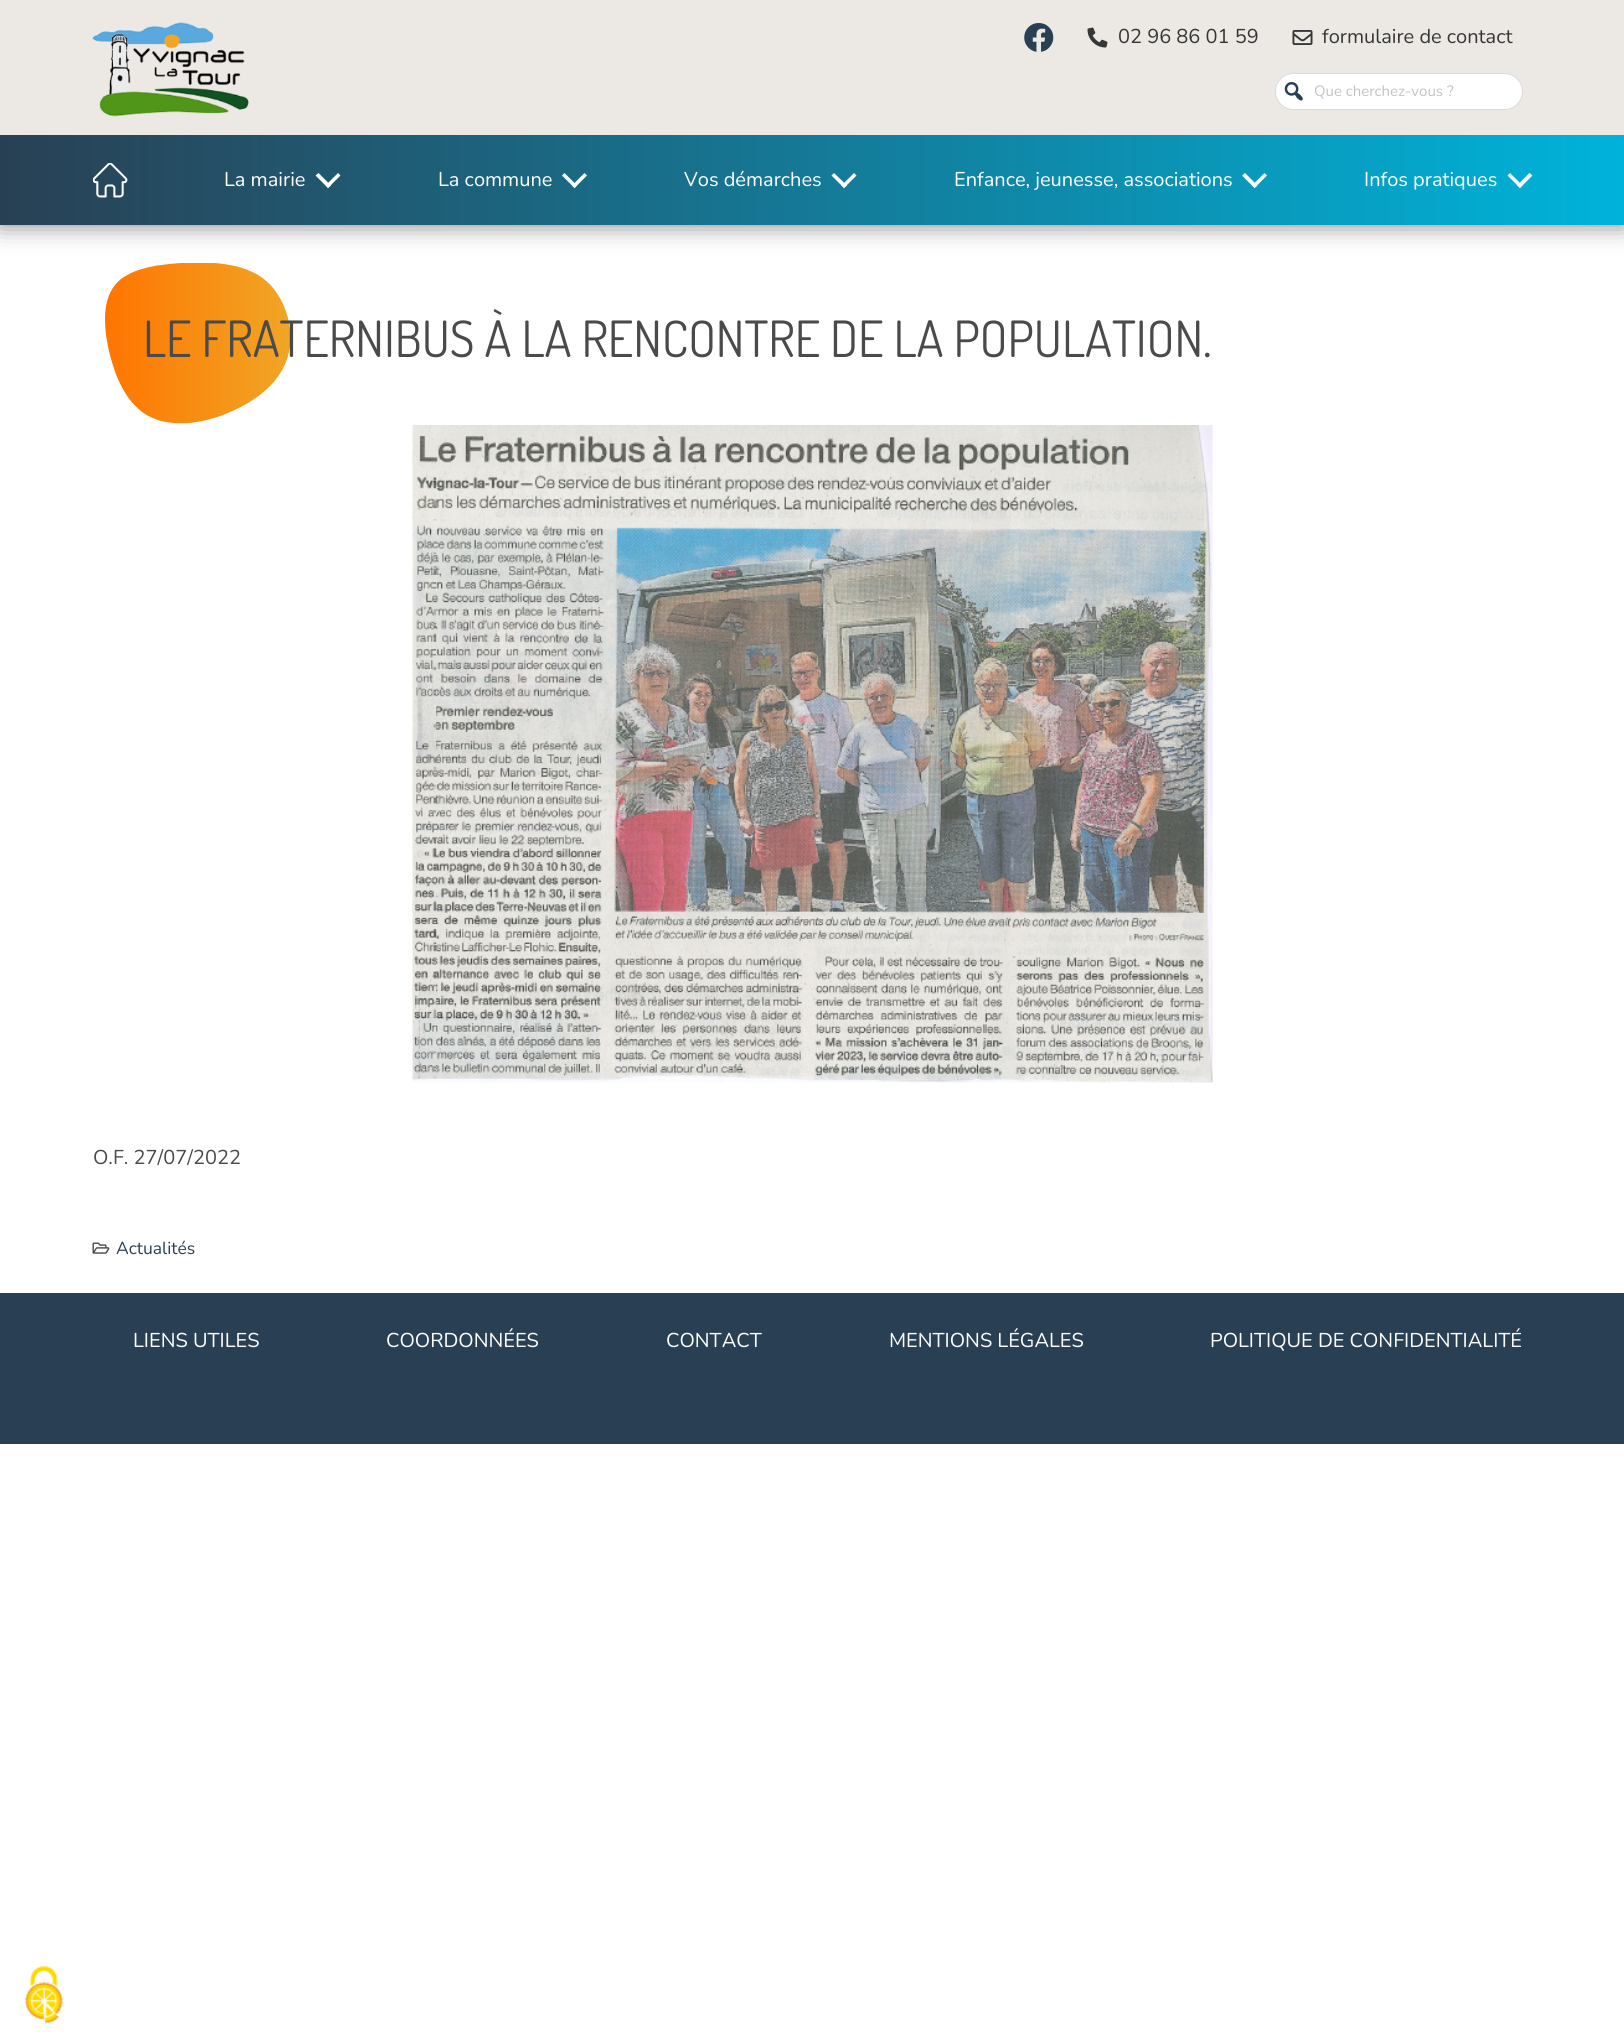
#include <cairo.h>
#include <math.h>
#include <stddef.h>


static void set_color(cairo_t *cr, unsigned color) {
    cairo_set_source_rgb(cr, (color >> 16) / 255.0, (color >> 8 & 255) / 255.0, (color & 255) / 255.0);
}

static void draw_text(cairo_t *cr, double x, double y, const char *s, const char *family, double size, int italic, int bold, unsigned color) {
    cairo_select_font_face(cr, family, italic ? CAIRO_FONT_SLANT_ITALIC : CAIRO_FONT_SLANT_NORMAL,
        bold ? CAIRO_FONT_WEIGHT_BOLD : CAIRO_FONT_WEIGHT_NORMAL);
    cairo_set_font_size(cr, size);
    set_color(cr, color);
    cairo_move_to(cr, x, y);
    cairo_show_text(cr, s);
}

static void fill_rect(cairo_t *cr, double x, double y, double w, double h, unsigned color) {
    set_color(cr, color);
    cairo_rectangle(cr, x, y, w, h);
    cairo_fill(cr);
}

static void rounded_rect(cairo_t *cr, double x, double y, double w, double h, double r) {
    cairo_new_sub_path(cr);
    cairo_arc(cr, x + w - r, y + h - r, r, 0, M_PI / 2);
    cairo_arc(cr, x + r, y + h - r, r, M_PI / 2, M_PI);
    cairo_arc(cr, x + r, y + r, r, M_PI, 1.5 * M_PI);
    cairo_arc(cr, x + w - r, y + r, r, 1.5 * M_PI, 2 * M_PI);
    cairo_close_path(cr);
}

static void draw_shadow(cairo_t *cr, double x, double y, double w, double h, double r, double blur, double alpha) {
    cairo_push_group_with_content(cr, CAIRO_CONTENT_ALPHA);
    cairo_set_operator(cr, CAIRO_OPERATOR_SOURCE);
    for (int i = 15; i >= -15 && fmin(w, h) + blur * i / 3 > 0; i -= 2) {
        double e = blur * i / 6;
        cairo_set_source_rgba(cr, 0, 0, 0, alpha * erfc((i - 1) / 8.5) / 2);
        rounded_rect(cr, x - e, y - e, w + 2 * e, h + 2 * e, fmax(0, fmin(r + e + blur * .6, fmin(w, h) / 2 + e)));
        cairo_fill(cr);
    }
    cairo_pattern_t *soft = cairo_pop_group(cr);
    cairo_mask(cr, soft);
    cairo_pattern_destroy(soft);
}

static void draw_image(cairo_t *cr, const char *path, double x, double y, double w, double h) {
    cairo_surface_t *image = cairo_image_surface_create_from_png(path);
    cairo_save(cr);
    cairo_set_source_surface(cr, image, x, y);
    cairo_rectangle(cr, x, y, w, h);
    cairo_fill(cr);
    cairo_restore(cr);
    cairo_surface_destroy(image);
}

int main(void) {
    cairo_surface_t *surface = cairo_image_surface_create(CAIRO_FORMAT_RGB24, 1624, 2041);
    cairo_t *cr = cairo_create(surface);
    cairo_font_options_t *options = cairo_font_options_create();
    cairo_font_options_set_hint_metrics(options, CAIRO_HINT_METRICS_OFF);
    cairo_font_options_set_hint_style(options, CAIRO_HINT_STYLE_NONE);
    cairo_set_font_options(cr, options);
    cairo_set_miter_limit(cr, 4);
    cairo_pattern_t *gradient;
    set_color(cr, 0xFFFFFF);
    cairo_paint(cr);
    draw_image(cr, "assets/img7.png", 105, 263, 186, 161);
    set_color(cr, 0x808080);
    draw_shadow(cr, 0, 0, 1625, 225, 0, 12.5, 1);
    fill_rect(cr, 0, 0, 1624, 135, 0xECE9E4);
    draw_image(cr, "assets/img1.png", 92, 22, 157, 95);
    draw_image(cr, "assets/img2.png", 1024, 23, 30, 29);
    draw_image(cr, "assets/img3.png", 1087, 27, 21, 21);
    draw_text(cr, 1118, 43, "02 96 86 01 59", "Nunito", 20, 0, 0, 0x363636);
    draw_image(cr, "assets/img4.png", 1292, 30, 21, 15);
    draw_text(cr, 1322, 43, "formulaire de contact", "Nunito", 20, 0, 0, 0x363636);
    set_color(cr, 0xFFFFFF);
    rounded_rect(cr, 1275.5, 73.5, 247, 36, 18);
    cairo_fill_preserve(cr);
    set_color(cr, 0xDBDBDB);
    cairo_set_line_width(cr, 1);
    cairo_stroke(cr);
    draw_image(cr, "assets/img5.png", 1284, 82, 19, 19);
    draw_text(cr, 1314, 96, "Que cherchez-vous ?", "Nunito", 15, 0, 0, 0xC3C3C3);
    gradient = cairo_pattern_create_linear(0, 180, 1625, 180);
    cairo_pattern_add_color_stop_rgba(gradient, 0, 0.161, 0.251, 0.329, 1);
    cairo_pattern_add_color_stop_rgba(gradient, 1, 0, 0.702, 0.855, 1);
    cairo_set_source(cr, gradient);
    cairo_pattern_destroy(gradient);
    cairo_rectangle(cr, 0, 135, 1624, 90);
    cairo_fill(cr);
    draw_image(cr, "assets/img6.png", 93, 163, 35, 35);
    draw_text(cr, 224, 186, "La mairie", "Nunito", 20, 0, 0, 0xFFFFFF);
    cairo_new_path(cr);
    cairo_move_to(cr, 325.5, 185.5);
    cairo_line_to(cr, 338, 173);
    cairo_line_to(cr, 340.5, 175.5);
    cairo_line_to(cr, 328, 188);
    cairo_close_path(cr);
    cairo_fill(cr);
    cairo_new_path(cr);
    cairo_move_to(cr, 315.5, 175.5);
    cairo_line_to(cr, 318.5, 173);
    cairo_line_to(cr, 331, 185.5);
    cairo_line_to(cr, 328, 188);
    cairo_close_path(cr);
    cairo_fill(cr);
    draw_text(cr, 438, 186, "La commune", "Nunito", 20, 0, 0, 0xFFFFFF);
    cairo_new_path(cr);
    cairo_move_to(cr, 572, 185.5);
    cairo_line_to(cr, 584.5, 173);
    cairo_line_to(cr, 587, 175.5);
    cairo_line_to(cr, 574.5, 188);
    cairo_close_path(cr);
    cairo_fill(cr);
    cairo_new_path(cr);
    cairo_move_to(cr, 562, 175.5);
    cairo_line_to(cr, 564.5, 173);
    cairo_line_to(cr, 577, 185.5);
    cairo_line_to(cr, 574.5, 188);
    cairo_close_path(cr);
    cairo_fill(cr);
    draw_text(cr, 684, 186, "Vos démarches", "Nunito", 20, 0, 0, 0xFFFFFF);
    cairo_new_path(cr);
    cairo_move_to(cr, 841.5, 185.5);
    cairo_line_to(cr, 854, 173);
    cairo_line_to(cr, 856.5, 175.5);
    cairo_line_to(cr, 844, 188);
    cairo_close_path(cr);
    cairo_fill(cr);
    cairo_new_path(cr);
    cairo_move_to(cr, 831.5, 175.5);
    cairo_line_to(cr, 834, 173);
    cairo_line_to(cr, 847, 185.5);
    cairo_line_to(cr, 844, 188);
    cairo_close_path(cr);
    cairo_fill(cr);
    draw_text(cr, 954, 186, "Enfance, jeunesse, associations", "Nunito", 20, 0, 0, 0xFFFFFF);
    cairo_new_path(cr);
    cairo_move_to(cr, 1252, 185.5);
    cairo_line_to(cr, 1264.5, 173);
    cairo_line_to(cr, 1267, 175.5);
    cairo_line_to(cr, 1254.5, 188);
    cairo_close_path(cr);
    cairo_fill(cr);
    cairo_new_path(cr);
    cairo_move_to(cr, 1242, 175.5);
    cairo_line_to(cr, 1245, 173);
    cairo_line_to(cr, 1257.5, 185.5);
    cairo_line_to(cr, 1254.5, 188);
    cairo_close_path(cr);
    cairo_fill(cr);
    draw_text(cr, 1364, 186, "Infos pratiques", "Nunito", 20, 0, 0, 0xFFFFFF);
    cairo_new_path(cr);
    cairo_move_to(cr, 1517, 185.5);
    cairo_line_to(cr, 1529.5, 173);
    cairo_line_to(cr, 1532.5, 175.5);
    cairo_line_to(cr, 1520, 188);
    cairo_close_path(cr);
    cairo_fill(cr);
    cairo_new_path(cr);
    cairo_move_to(cr, 1507.5, 175.5);
    cairo_line_to(cr, 1510, 173);
    cairo_line_to(cr, 1522.5, 185.5);
    cairo_line_to(cr, 1520, 188);
    cairo_close_path(cr);
    cairo_fill(cr);
    draw_text(cr, 143, 357, "LE FRATERNIBUS À LA RENCONTRE DE LA POPULATION.", "Dosis", 50, 0, 0, 0x4A4A4A);
    draw_image(cr, "assets/img8.png", 412, 425, 801, 658);
    draw_text(cr, 93, 1164, "O.F. 27/07/2022", "Nunito", 20, 0, 0, 0x4A4A4A);
    draw_image(cr, "assets/img9.png", 92, 1242, 18, 12);
    draw_text(cr, 116, 1254, "Actualités", "Nunito", 17.5, 0, 0, 0x294054);
    fill_rect(cr, 0, 1293, 1624, 151, 0x294054);
    draw_text(cr, 133, 1347, "LIENS UTILES", "Nunito", 20, 0, 0, 0xFFFFFF);
    draw_text(cr, 386, 1347, "COORDONNÉES", "Nunito", 20, 0, 0, 0xFFFFFF);
    draw_text(cr, 666, 1347, "CONTACT", "Nunito", 20, 0, 0, 0xFFFFFF);
    draw_text(cr, 889, 1347, "MENTIONS LÉGALES", "Nunito", 20, 0, 0, 0xFFFFFF);
    draw_text(cr, 1210, 1347, "POLITIQUE DE CONFIDENTIALITÉ", "Nunito", 20, 0, 0, 0xFFFFFF);
    draw_image(cr, "assets/img10.png", 24, 1966, 39, 58);
    cairo_surface_write_to_png(surface, "output.png");
    cairo_font_options_destroy(options);
    cairo_destroy(cr);
    cairo_surface_destroy(surface);
    return 0;
}
